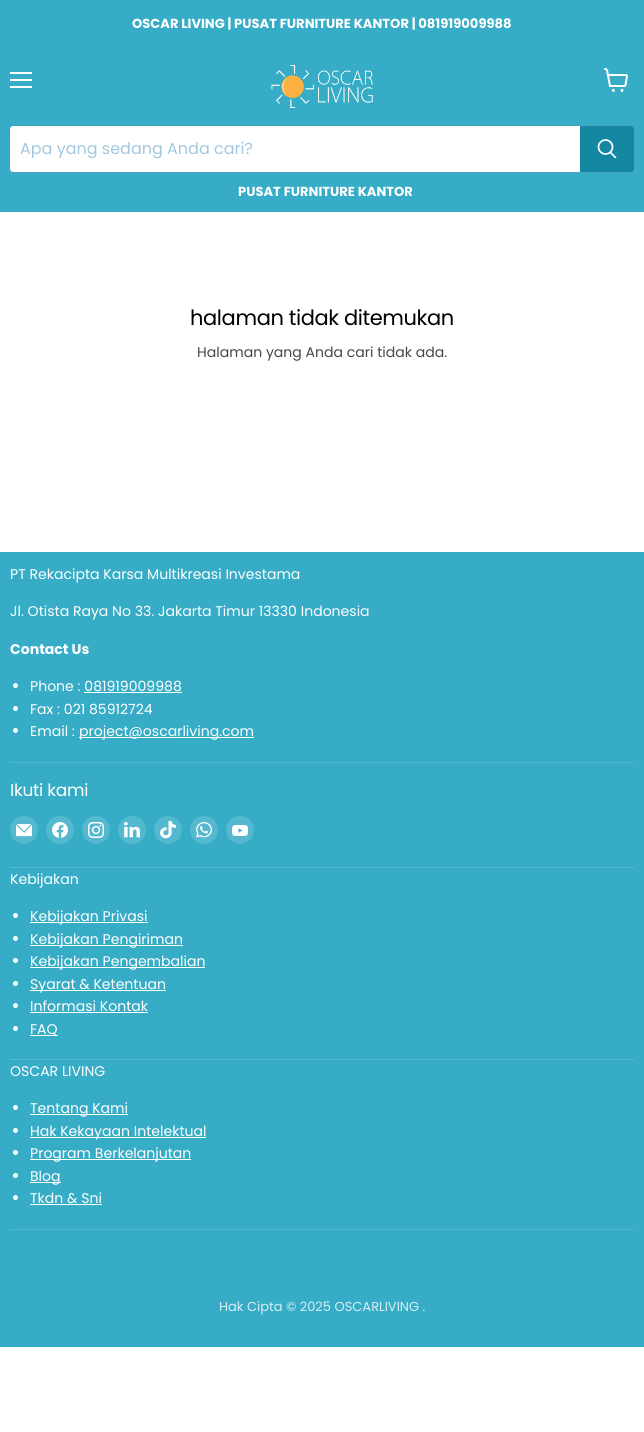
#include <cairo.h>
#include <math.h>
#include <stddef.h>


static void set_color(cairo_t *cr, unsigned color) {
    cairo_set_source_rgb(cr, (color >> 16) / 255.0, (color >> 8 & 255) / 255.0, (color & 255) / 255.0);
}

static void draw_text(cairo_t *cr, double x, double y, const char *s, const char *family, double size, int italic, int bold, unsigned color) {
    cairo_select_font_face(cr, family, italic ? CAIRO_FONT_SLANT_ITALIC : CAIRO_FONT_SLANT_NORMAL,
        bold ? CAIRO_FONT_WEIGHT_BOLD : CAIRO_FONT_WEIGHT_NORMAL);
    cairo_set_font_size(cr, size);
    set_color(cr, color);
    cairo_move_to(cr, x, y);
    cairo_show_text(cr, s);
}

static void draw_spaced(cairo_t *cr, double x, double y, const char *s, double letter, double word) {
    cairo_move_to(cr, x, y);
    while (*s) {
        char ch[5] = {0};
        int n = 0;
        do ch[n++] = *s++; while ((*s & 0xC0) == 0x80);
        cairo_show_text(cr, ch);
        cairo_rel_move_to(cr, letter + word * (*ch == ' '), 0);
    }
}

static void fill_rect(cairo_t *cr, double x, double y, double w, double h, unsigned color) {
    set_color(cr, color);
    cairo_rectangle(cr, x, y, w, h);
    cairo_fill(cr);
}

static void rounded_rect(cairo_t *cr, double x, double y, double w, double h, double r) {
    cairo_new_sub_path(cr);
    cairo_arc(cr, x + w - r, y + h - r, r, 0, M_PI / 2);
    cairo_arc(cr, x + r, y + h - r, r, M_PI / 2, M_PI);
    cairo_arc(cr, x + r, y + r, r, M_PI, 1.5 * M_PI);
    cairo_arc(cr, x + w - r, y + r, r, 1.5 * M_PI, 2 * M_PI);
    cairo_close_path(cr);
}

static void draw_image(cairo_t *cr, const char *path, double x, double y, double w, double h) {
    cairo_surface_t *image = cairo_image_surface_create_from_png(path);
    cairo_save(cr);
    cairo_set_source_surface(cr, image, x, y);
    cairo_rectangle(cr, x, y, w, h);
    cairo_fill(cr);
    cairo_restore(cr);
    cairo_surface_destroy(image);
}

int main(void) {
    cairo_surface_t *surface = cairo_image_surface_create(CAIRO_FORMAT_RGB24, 644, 1432);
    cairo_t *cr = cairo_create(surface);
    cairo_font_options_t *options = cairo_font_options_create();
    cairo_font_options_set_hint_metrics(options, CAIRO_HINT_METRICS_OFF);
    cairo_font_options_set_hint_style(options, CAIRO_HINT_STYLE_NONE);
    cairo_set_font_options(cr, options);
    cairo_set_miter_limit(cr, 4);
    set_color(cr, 0xFFFFFF);
    cairo_paint(cr);
    fill_rect(cr, 0, 0, 644, 212, 0x36ACC6);
    draw_text(cr, 132, 28, "OSCAR LIVING | PUSAT FURNITURE KANTOR | 081919009988", "Poppins", 13.1, 0, 1, 0xFFFFFF);
    fill_rect(cr, 10, 72, 22, 2, 0xFFFFFF);
    fill_rect(cr, 10, 79, 22, 2, 0xFFFFFF);
    fill_rect(cr, 10, 86, 22, 2, 0xFFFFFF);
    draw_image(cr, "assets/img1.png", 604, 68, 24, 24);
    draw_image(cr, "assets/img2.png", 271, 65, 102, 44);
    rounded_rect(cr, 9.5, 125.5, 625, 47, 3.5);
    set_color(cr, 0x45A3B8);
    cairo_set_line_width(cr, 1);
    cairo_stroke(cr);
    set_color(cr, 0xFFFFFF);
    cairo_new_path(cr);
    cairo_move_to(cr, 13, 126);
    cairo_line_to(cr, 580, 126);
    cairo_line_to(cr, 580, 172);
    cairo_line_to(cr, 13, 172);
    cairo_curve_to(cr, 11.5, 172, 10, 170.5, 10, 169);
    cairo_line_to(cr, 10, 129);
    cairo_curve_to(cr, 10, 127.5, 11.5, 126, 13, 126);
    cairo_close_path(cr);
    cairo_fill(cr);
    draw_text(cr, 20, 154, "Apa yang sedang Anda cari?", "Poppins", 16, 0, 0, 0xA2C7DF);
    set_color(cr, 0x1487A3);
    cairo_new_path(cr);
    cairo_move_to(cr, 580.5, 126.5);
    cairo_line_to(cr, 631, 126.5);
    cairo_curve_to(cr, 632.5, 126.5, 633.5, 127.5, 633.5, 129);
    cairo_line_to(cr, 633.5, 169);
    cairo_curve_to(cr, 633.5, 170.5, 632.5, 171.5, 631, 171.5);
    cairo_line_to(cr, 580.5, 171.5);
    cairo_close_path(cr);
    cairo_fill_preserve(cr);
    cairo_stroke(cr);
    cairo_new_path(cr);
    cairo_move_to(cr, 615.5, 157.5);
    cairo_line_to(cr, 610.5, 152.5);
    set_color(cr, 0xFFFFFF);
    cairo_set_line_width(cr, 1.7);
    cairo_set_line_cap(cr, CAIRO_LINE_CAP_ROUND);
    cairo_stroke(cr);
    cairo_arc(cr, 605.5, 147, 7, 0, 2 * M_PI);
    cairo_set_line_cap(cr, CAIRO_LINE_CAP_BUTT);
    cairo_stroke(cr);
    draw_text(cr, 238, 196, "PUSAT FURNITURE KANTOR", "Poppins", 13.1, 0, 1, 0xFFFFFF);
    cairo_select_font_face(cr, "Poppins", CAIRO_FONT_SLANT_NORMAL, CAIRO_FONT_WEIGHT_NORMAL);
    cairo_set_font_size(cr, 21);
    set_color(cr, 0x000000);
    draw_spaced(cr, 190, 325, "halaman tidak ditemukan", -0.4, 0);
    draw_text(cr, 197, 357, "Halaman yang Anda cari tidak ada.", "Poppins", 14.05, 0, 0, 0x484747);
    fill_rect(cr, 0, 552, 644, 795, 0x36ACC6);
    fill_rect(cr, 10, 762, 624, 1, 0x54B8CF);
    draw_text(cr, 10, 579, "PT Rekacipta Karsa Multikreasi Investama", "Poppins", 14.05, 0, 0, 0xFFFFFF);
    draw_text(cr, 10, 616, "Jl. Otista Raya No 33. Jakarta Timur 13330 Indonesia", "Poppins", 14.05, 0, 0, 0xFFFFFF);
    draw_text(cr, 10, 654, "Contact Us", "Poppins", 14.05, 0, 1, 0xFFFFFF);
    cairo_new_path(cr);
    cairo_arc(cr, 15.5, 685.5, 2.5, 0, 2 * M_PI);
    cairo_fill(cr);
    draw_text(cr, 30, 691, "Phone : 081919009988", "Poppins", 14.05, 0, 0, 0xFFFFFF);
    fill_rect(cr, 84, 692, 98, 1, 0xFFFFFF);
    cairo_new_path(cr);
    cairo_arc(cr, 15.5, 708.5, 2.5, 0, 2 * M_PI);
    cairo_fill(cr);
    draw_text(cr, 30, 714, "Fax : 021 85912724", "Poppins", 14.05, 0, 0, 0xFFFFFF);
    cairo_new_path(cr);
    cairo_arc(cr, 15.5, 730.5, 2.5, 0, 2 * M_PI);
    cairo_fill(cr);
    draw_text(cr, 30, 736, "Email :", "Poppins", 14.05, 0, 0, 0xFFFFFF);
    fill_rect(cr, 79, 737, 175, 1, 0xFFFFFF);
    draw_text(cr, 79, 736, "project@oscarliving.com", "Poppins", 14.05, 0, 0, 0xFFFFFF);
    fill_rect(cr, 10, 867, 624, 1, 0x54B8CF);
    cairo_set_font_size(cr, 17);
    set_color(cr, 0xFFFFFF);
    draw_spaced(cr, 10, 796, "Ikuti kami", -0.25, 0);
    set_color(cr, 0x54B8CF);
    cairo_new_path(cr);
    cairo_arc(cr, 24, 830, 14, 0, 2 * M_PI);
    cairo_fill(cr);
    draw_image(cr, "assets/img3.png", 16, 824, 16, 13);
    cairo_arc(cr, 60, 830, 14, 0, 2 * M_PI);
    cairo_fill(cr);
    draw_image(cr, "assets/img4.png", 52, 822, 16, 16);
    cairo_arc(cr, 96, 830, 14, 0, 2 * M_PI);
    cairo_fill(cr);
    draw_image(cr, "assets/img5.png", 88, 822, 16, 16);
    cairo_arc(cr, 132, 830, 14, 0, 2 * M_PI);
    cairo_fill(cr);
    draw_image(cr, "assets/img6.png", 124, 822, 16, 16);
    cairo_arc(cr, 168, 830, 14, 0, 2 * M_PI);
    cairo_fill(cr);
    draw_image(cr, "assets/img7.png", 160, 821, 16, 18);
    cairo_arc(cr, 204, 830, 14, 0, 2 * M_PI);
    cairo_fill(cr);
    draw_image(cr, "assets/img8.png", 196, 822, 16, 16);
    cairo_arc(cr, 240, 830, 14, 0, 2 * M_PI);
    cairo_fill(cr);
    draw_image(cr, "assets/img9.png", 232, 825, 16, 11);
    fill_rect(cr, 10, 1059, 624, 1, 0x54B8CF);
    draw_text(cr, 10, 884, "Kebijakan", "Poppins", 14.05, 0, 0, 0xFFFFFF);
    cairo_new_path(cr);
    cairo_arc(cr, 15.5, 915.5, 2.5, 0, 2 * M_PI);
    cairo_fill(cr);
    fill_rect(cr, 30, 922, 118, 1, 0xFFFFFF);
    draw_text(cr, 30, 921, "Kebijakan Privasi", "Poppins", 14.05, 0, 0, 0xFFFFFF);
    cairo_new_path(cr);
    cairo_arc(cr, 15.5, 938.5, 2.5, 0, 2 * M_PI);
    cairo_fill(cr);
    fill_rect(cr, 30, 945, 153, 1, 0xFFFFFF);
    draw_text(cr, 30, 944, "Kebijakan Pengiriman", "Poppins", 14.05, 0, 0, 0xFFFFFF);
    cairo_new_path(cr);
    cairo_arc(cr, 15.5, 960.5, 2.5, 0, 2 * M_PI);
    cairo_fill(cr);
    fill_rect(cr, 30, 967, 175, 1, 0xFFFFFF);
    draw_text(cr, 30, 966, "Kebijakan Pengembalian", "Poppins", 14.05, 0, 0, 0xFFFFFF);
    cairo_new_path(cr);
    cairo_arc(cr, 15.5, 983.5, 2.5, 0, 2 * M_PI);
    cairo_fill(cr);
    fill_rect(cr, 30, 990, 136, 1, 0xFFFFFF);
    draw_text(cr, 30, 989, "Syarat & Ketentuan", "Poppins", 14.05, 0, 0, 0xFFFFFF);
    cairo_new_path(cr);
    cairo_arc(cr, 15.5, 1005.5, 2.5, 0, 2 * M_PI);
    cairo_fill(cr);
    draw_text(cr, 30, 1011, "Informasi Kontak", "Poppins", 14.05, 0, 0, 0xFFFFFF);
    fill_rect(cr, 30, 1012, 118, 1, 0xFFFFFF);
    cairo_new_path(cr);
    cairo_arc(cr, 15.5, 1028.5, 2.5, 0, 2 * M_PI);
    cairo_fill(cr);
    fill_rect(cr, 30, 1035, 28, 1, 0xFFFFFF);
    draw_text(cr, 30, 1034, "FAQ", "Poppins", 14.05, 0, 0, 0xFFFFFF);
    fill_rect(cr, 10, 1229, 624, 1, 0x54B8CF);
    draw_text(cr, 10, 1076, "OSCAR LIVING", "Poppins", 14.05, 0, 0, 0xFFFFFF);
    cairo_new_path(cr);
    cairo_arc(cr, 15.5, 1107.5, 2.5, 0, 2 * M_PI);
    cairo_fill(cr);
    fill_rect(cr, 30, 1114, 98, 1, 0xFFFFFF);
    draw_text(cr, 30, 1113, "Tentang Kami", "Poppins", 14.05, 0, 0, 0xFFFFFF);
    cairo_new_path(cr);
    cairo_arc(cr, 15.5, 1130.5, 2.5, 0, 2 * M_PI);
    cairo_fill(cr);
    fill_rect(cr, 30, 1137, 176, 1, 0xFFFFFF);
    draw_text(cr, 30, 1136, "Hak Kekayaan Intelektual", "Poppins", 14.05, 0, 0, 0xFFFFFF);
    cairo_new_path(cr);
    cairo_arc(cr, 15.5, 1152.5, 2.5, 0, 2 * M_PI);
    cairo_fill(cr);
    fill_rect(cr, 30, 1159, 161, 1, 0xFFFFFF);
    draw_text(cr, 30, 1158, "Program Berkelanjutan", "Poppins", 14.05, 0, 0, 0xFFFFFF);
    cairo_new_path(cr);
    cairo_arc(cr, 15.5, 1175.5, 2.5, 0, 2 * M_PI);
    cairo_fill(cr);
    fill_rect(cr, 30, 1182, 31, 1, 0xFFFFFF);
    draw_text(cr, 30, 1181, "Blog", "Poppins", 14.05, 0, 0, 0xFFFFFF);
    cairo_new_path(cr);
    cairo_arc(cr, 15.5, 1197.5, 2.5, 0, 2 * M_PI);
    cairo_fill(cr);
    draw_text(cr, 30, 1203, "Tkdn & Sni", "Poppins", 14.05, 0, 0, 0xFFFFFF);
    fill_rect(cr, 30, 1204, 72, 1, 0xFFFFFF);
    draw_text(cr, 219, 1311, "Hak Cipta © 2025 OSCARLIVING .", "Poppins", 13, 0, 0, 0xD7EEF4);
    cairo_surface_write_to_png(surface, "output.png");
    cairo_font_options_destroy(options);
    cairo_destroy(cr);
    cairo_surface_destroy(surface);
    return 0;
}
